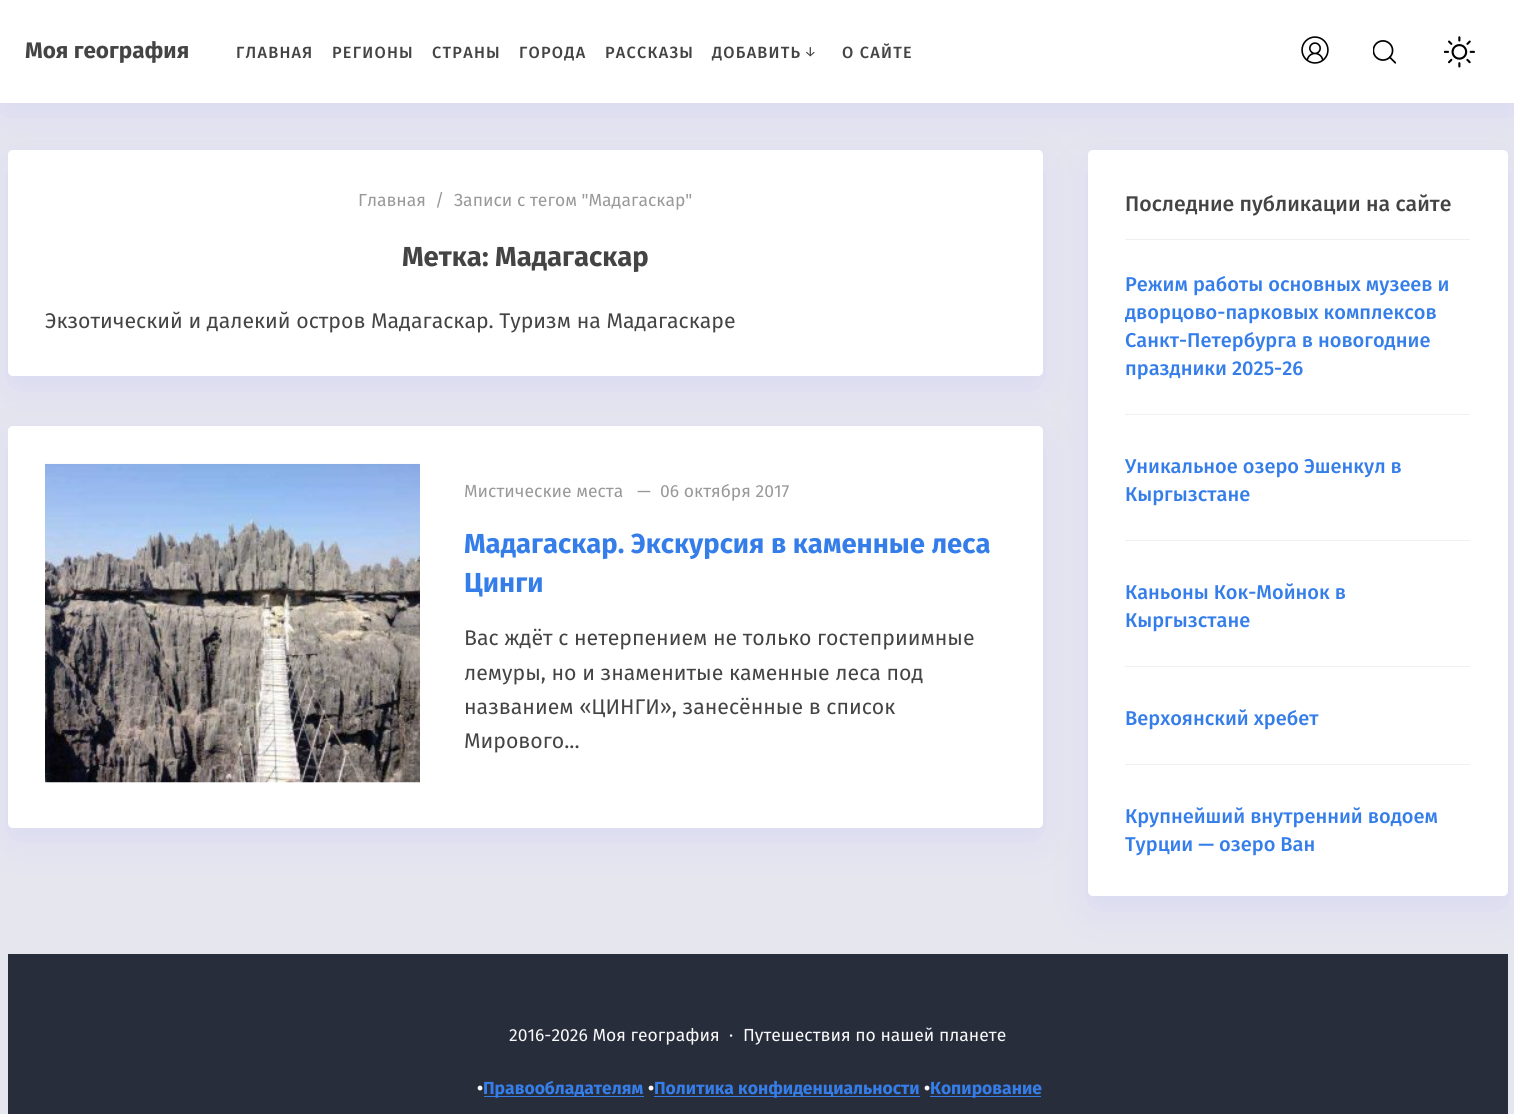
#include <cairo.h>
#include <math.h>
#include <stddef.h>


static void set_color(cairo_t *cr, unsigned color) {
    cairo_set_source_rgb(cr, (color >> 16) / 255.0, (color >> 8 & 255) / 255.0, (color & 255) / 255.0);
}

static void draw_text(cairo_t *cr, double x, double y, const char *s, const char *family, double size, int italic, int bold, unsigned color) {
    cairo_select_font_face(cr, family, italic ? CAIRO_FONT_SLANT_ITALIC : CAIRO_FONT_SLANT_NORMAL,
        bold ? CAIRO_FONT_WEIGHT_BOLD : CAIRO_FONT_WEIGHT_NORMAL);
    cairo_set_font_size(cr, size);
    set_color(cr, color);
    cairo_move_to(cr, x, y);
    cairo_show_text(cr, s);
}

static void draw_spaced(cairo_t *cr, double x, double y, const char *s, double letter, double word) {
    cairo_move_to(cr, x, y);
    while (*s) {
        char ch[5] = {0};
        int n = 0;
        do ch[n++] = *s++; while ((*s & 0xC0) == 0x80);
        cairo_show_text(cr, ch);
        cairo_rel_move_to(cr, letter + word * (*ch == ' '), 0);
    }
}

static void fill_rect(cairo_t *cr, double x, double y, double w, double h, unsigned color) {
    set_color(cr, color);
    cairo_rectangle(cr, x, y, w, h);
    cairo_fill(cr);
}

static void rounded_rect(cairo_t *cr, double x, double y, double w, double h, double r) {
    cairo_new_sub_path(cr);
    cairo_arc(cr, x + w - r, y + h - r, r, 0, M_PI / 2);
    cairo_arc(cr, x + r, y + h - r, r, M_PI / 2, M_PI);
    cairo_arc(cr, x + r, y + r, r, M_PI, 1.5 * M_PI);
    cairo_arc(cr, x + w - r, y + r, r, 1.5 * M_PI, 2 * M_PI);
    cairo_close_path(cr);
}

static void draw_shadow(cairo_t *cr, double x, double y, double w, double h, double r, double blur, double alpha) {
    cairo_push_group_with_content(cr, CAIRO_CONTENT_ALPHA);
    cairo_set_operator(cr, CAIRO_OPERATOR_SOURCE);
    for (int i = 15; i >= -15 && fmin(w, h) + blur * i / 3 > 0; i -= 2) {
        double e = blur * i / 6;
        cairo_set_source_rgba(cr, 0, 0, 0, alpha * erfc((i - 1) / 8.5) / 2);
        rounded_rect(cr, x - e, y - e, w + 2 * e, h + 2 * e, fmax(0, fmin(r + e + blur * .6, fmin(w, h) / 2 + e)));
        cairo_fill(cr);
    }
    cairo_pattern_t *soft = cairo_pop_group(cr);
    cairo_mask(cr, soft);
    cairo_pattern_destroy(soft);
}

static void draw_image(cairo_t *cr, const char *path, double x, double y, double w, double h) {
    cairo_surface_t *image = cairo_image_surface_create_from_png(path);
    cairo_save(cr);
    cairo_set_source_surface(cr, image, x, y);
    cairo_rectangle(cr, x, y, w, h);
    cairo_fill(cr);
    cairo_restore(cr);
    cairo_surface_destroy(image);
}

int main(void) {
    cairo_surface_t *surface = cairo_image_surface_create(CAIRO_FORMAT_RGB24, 1514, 1114);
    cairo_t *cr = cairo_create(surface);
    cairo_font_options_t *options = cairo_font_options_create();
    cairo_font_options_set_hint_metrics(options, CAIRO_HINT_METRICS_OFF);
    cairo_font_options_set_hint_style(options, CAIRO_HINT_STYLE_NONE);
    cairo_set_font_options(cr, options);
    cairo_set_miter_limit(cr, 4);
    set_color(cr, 0xE6E6EF);
    cairo_paint(cr);
    set_color(cr, 0xA4A8FF);
    draw_shadow(cr, 8, 163, 1035, 226, 5, 19, 0.2);
    set_color(cr, 0xFFFFFF);
    rounded_rect(cr, 8, 150, 1035, 226, 5);
    cairo_fill(cr);
    set_color(cr, 0xA4A8FF);
    draw_shadow(cr, 8, 439, 1035, 401, 5, 19, 0.2);
    set_color(cr, 0xFFFFFF);
    rounded_rect(cr, 8, 426, 1035, 402, 5);
    cairo_fill(cr);
    fill_rect(cr, 8, 954, 1500, 160, 0x282D3C);
    set_color(cr, 0xA4A8FF);
    draw_shadow(cr, 1088, 163, 420, 746, 5, 19, 0.2);
    set_color(cr, 0xFFFFFF);
    rounded_rect(cr, 1088, 150, 420, 746, 5);
    cairo_fill(cr);
    set_color(cr, 0xA4A8FF);
    draw_shadow(cr, 0, 13, 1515, 102, 0, 19, 0.2);
    fill_rect(cr, 0, 0, 1514, 103, 0xFFFFFF);
    draw_text(cr, 25, 58, "Моя география", "Fira Sans", 22.5, 0, 1, 0x444444);
    cairo_select_font_face(cr, "Fira Sans Medium", CAIRO_FONT_SLANT_NORMAL, CAIRO_FONT_WEIGHT_NORMAL);
    cairo_set_font_size(cr, 16.25);
    draw_spaced(cr, 236, 58, "ГЛАВНАЯ", 1.25, 0);
    draw_spaced(cr, 332, 58, "РЕГИОНЫ", 1.25, 0);
    draw_spaced(cr, 432, 58, "СТРАНЫ", 1.25, 0);
    draw_spaced(cr, 519, 58, "ГОРОДА", 1.25, 0);
    draw_spaced(cr, 605, 58, "РАССКАЗЫ", 1.25, 0);
    draw_spaced(cr, 712, 58, "ДОБАВИТЬ", 1.25, 0);
    cairo_select_font_face(cr, "Fira Sans", CAIRO_FONT_SLANT_NORMAL, CAIRO_FONT_WEIGHT_NORMAL);
    cairo_set_font_size(cr, 14);
    draw_spaced(cr, 804, 56, "↓", 1.25, 0);
    cairo_select_font_face(cr, "Fira Sans Medium", CAIRO_FONT_SLANT_NORMAL, CAIRO_FONT_WEIGHT_NORMAL);
    cairo_set_font_size(cr, 16.25);
    draw_spaced(cr, 842, 58, "О САЙТЕ", 1.25, 0);
    draw_image(cr, "assets/img1.png", 1301, 36, 28, 28);
    draw_image(cr, "assets/img2.png", 1373, 40, 23, 24);
    draw_image(cr, "assets/img3.png", 1444, 36, 31, 32);
    draw_text(cr, 358, 206, "Главная", "Fira Sans", 17.5, 0, 0, 0x999999);
    draw_text(cr, 435, 206, "/", "Fira Sans", 17.5, 0, 0, 0x999999);
    draw_text(cr, 454, 206, "Записи с тегом \"Мадагаскар\"", "Fira Sans", 17.5, 0, 0, 0x999999);
    draw_text(cr, 402, 266, "Метка: Мадагаскар", "Fira Sans", 27.5, 0, 1, 0x444444);
    draw_text(cr, 45, 328, "Экзотический и далекий остров Мадагаскар. Туризм на Мадагаскаре", "Fira Sans", 21.25, 0, 0, 0x444444);
    draw_image(cr, "assets/img4.png", 45, 463, 375, 320);
    draw_text(cr, 464, 497, "Мистические места", "Fira Sans", 17.5, 0, 0, 0x999999);
    draw_text(cr, 637, 497, "—  06 октября 2017", "Fira Sans", 17.5, 0, 0, 0x999999);
    draw_text(cr, 464, 553, "Мадагаскар. Экскурсия в каменные леса", "Fira Sans", 27.5, 0, 1, 0x357EEA);
    draw_text(cr, 464, 592, "Цинги", "Fira Sans", 27.5, 0, 1, 0x357EEA);
    draw_text(cr, 464, 645, "Вас ждёт с нетерпением не только гостеприимные", "Fira Sans", 21.25, 0, 0, 0x444444);
    draw_text(cr, 464, 680, "лемуры, но и знаменитые каменные леса под", "Fira Sans", 21.25, 0, 0, 0x444444);
    draw_text(cr, 464, 714, "названием «ЦИНГИ», занесённые в список", "Fira Sans", 21.25, 0, 0, 0x444444);
    draw_text(cr, 464, 748, "Мирового...", "Fira Sans", 21.25, 0, 0, 0x444444);
    fill_rect(cr, 1125, 239, 345, 1, 0xF0F0F1);
    draw_text(cr, 1125, 211, "Последние публикации на сайте", "Fira Sans Medium", 21.25, 0, 0, 0x444444);
    fill_rect(cr, 1125, 414, 345, 1, 0xF0F0F1);
    draw_text(cr, 1125, 291, "Режим работы основных музеев и", "Fira Sans Medium", 20, 0, 0, 0x357EEA);
    draw_text(cr, 1125, 319, "дворцово-парковых комплексов", "Fira Sans Medium", 20, 0, 0, 0x357EEA);
    draw_text(cr, 1125, 347, "Санкт-Петербурга в новогодние", "Fira Sans Medium", 20, 0, 0, 0x357EEA);
    draw_text(cr, 1125, 375, "праздники 2025-26", "Fira Sans Medium", 20, 0, 0, 0x357EEA);
    fill_rect(cr, 1125, 540, 345, 1, 0xF0F0F1);
    draw_text(cr, 1125, 473, "Уникальное озеро Эшенкул в", "Fira Sans Medium", 20, 0, 0, 0x357EEA);
    draw_text(cr, 1125, 501, "Кыргызстане", "Fira Sans Medium", 20, 0, 0, 0x357EEA);
    fill_rect(cr, 1125, 666, 345, 1, 0xF0F0F1);
    draw_text(cr, 1125, 599, "Каньоны Кок-Мойнок в", "Fira Sans Medium", 20, 0, 0, 0x357EEA);
    draw_text(cr, 1125, 627, "Кыргызстане", "Fira Sans Medium", 20, 0, 0, 0x357EEA);
    fill_rect(cr, 1125, 764, 345, 1, 0xF0F0F1);
    draw_text(cr, 1125, 725, "Верхоянский хребет", "Fira Sans Medium", 20, 0, 0, 0x357EEA);
    draw_text(cr, 1125, 823, "Крупнейший внутренний водоем", "Fira Sans Medium", 20, 0, 0, 0x357EEA);
    draw_text(cr, 1125, 851, "Турции — озеро Ван", "Fira Sans Medium", 20, 0, 0, 0x357EEA);
    draw_text(cr, 509, 1041, "2016-2026 Моя география", "Fira Sans", 17.5, 0, 0, 0xF9F9F9);
    draw_text(cr, 729, 1041, "·", "Fira Sans", 17.5, 0, 0, 0xF9F9F9);
    draw_text(cr, 743, 1041, "Путешествия по нашей планете", "Fira Sans", 17.5, 0, 0, 0xF9F9F9);
    draw_text(cr, 477, 1094, "•", "Fira Sans", 17.5, 0, 1, 0xF9F9F9);
    fill_rect(cr, 484, 1096, 160, 1, 0x357EEA);
    draw_text(cr, 483, 1094, "Правообладателям", "Fira Sans", 17.5, 0, 1, 0x357EEA);
    draw_text(cr, 648, 1094, "•", "Fira Sans", 17.5, 0, 1, 0xF9F9F9);
    fill_rect(cr, 654, 1096, 266, 1, 0x357EEA);
    draw_text(cr, 654, 1094, "Политика конфиденциальности", "Fira Sans", 17.5, 0, 1, 0x357EEA);
    draw_text(cr, 924, 1094, "•", "Fira Sans", 17.5, 0, 1, 0xF9F9F9);
    fill_rect(cr, 930, 1096, 111, 1, 0x357EEA);
    draw_text(cr, 930, 1094, "Копирование", "Fira Sans", 17.5, 0, 1, 0x357EEA);
    cairo_surface_write_to_png(surface, "output.png");
    cairo_font_options_destroy(options);
    cairo_destroy(cr);
    cairo_surface_destroy(surface);
    return 0;
}
